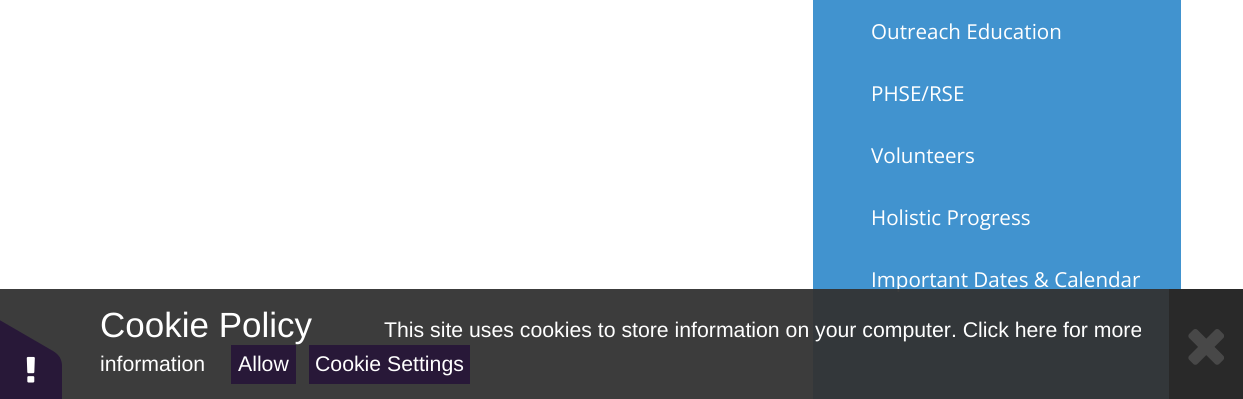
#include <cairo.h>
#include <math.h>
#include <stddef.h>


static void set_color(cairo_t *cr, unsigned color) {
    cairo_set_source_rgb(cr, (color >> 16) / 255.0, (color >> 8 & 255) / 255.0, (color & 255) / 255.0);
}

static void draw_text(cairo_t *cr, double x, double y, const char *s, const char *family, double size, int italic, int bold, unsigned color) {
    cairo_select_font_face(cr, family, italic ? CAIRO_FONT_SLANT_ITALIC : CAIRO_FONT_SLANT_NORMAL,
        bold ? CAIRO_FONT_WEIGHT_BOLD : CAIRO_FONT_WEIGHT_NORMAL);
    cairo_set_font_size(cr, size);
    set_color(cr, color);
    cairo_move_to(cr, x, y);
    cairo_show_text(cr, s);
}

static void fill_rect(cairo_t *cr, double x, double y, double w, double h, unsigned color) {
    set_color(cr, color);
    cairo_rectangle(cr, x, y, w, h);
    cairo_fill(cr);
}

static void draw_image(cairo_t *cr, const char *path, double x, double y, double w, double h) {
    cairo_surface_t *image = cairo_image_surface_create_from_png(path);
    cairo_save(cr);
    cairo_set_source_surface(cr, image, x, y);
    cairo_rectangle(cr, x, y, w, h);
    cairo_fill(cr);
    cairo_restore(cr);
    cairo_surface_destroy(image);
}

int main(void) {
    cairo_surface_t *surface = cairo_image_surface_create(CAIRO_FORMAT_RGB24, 1243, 399);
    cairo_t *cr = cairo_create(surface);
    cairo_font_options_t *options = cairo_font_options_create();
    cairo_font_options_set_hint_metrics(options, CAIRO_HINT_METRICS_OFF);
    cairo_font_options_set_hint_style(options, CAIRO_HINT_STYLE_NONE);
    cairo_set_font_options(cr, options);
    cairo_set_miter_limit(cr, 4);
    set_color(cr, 0xFFFFFF);
    cairo_paint(cr);
    fill_rect(cr, 813, 0, 368, 399, 0x4193CF);
    draw_text(cr, 871, 39, "Outreach Education", "Open Sans", 20.6, 0, 0, 0xFFFFFF);
    draw_text(cr, 871, 101, "PHSE/RSE", "Open Sans", 20.6, 0, 0, 0xFFFFFF);
    draw_text(cr, 871, 163, "Volunteers", "Open Sans", 20.6, 0, 0, 0xFFFFFF);
    draw_text(cr, 871, 225, "Holistic Progress", "Open Sans", 20.6, 0, 0, 0xFFFFFF);
    draw_text(cr, 871, 287, "Important Dates & Calendar", "Open Sans", 20.6, 0, 0, 0xFFFFFF);
    cairo_set_source_rgba(cr, 0.2, 0.2, 0.2, 0.95);
    cairo_rectangle(cr, 0, 289, 1169, 110);
    cairo_fill(cr);
    set_color(cr, 0x281838);
    cairo_new_path(cr);
    cairo_move_to(cr, 62, 366);
    cairo_line_to(cr, 62, 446);
    cairo_curve_to(cr, 62, 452, 60, 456, 57, 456);
    cairo_line_to(cr, -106, 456);
    cairo_curve_to(cr, -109, 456, -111, 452, -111, 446);
    cairo_line_to(cr, -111, 366);
    cairo_curve_to(cr, -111, 361, -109, 356, -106, 356);
    cairo_line_to(cr, 57, 356);
    cairo_curve_to(cr, 60, 356, 62, 361, 62, 366);
    cairo_close_path(cr);
    cairo_fill(cr);
    cairo_new_path(cr);
    cairo_move_to(cr, -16, 311);
    cairo_line_to(cr, 53, 351);
    cairo_curve_to(cr, 58, 354, 61, 358, 60, 360);
    cairo_line_to(cr, -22, 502);
    cairo_curve_to(cr, -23, 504, -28, 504, -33, 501);
    cairo_line_to(cr, -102, 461);
    cairo_curve_to(cr, -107, 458, -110, 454, -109, 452);
    cairo_line_to(cr, -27, 310);
    cairo_curve_to(cr, -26, 308, -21, 308, -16, 311);
    cairo_close_path(cr);
    cairo_fill(cr);
    draw_image(cr, "assets/img1.png", 26, 356, 9, 27);
    draw_text(cr, 100, 337, "Cookie Policy", "Liberation Sans", 35, 0, 0, 0xFFFFFF);
    draw_text(cr, 384, 337, "This site uses cookies to store information on your computer. Click here for more", "Liberation Sans", 21.25, 0, 0, 0xFFFFFF);
    draw_text(cr, 100, 371, "information", "Liberation Sans", 21.25, 0, 0, 0xFFFFFF);
    fill_rect(cr, 231, 345, 65, 39, 0x281838);
    draw_text(cr, 238, 371, "Allow", "Liberation Sans", 21.25, 0, 0, 0xFFFFFF);
    fill_rect(cr, 309, 345, 161, 39, 0x281838);
    draw_text(cr, 315, 371, "Cookie Settings", "Liberation Sans", 21.25, 0, 0, 0xFFFFFF);
    fill_rect(cr, 1169, 289, 74, 110, 0x292929);
    draw_image(cr, "assets/img2.png", 1188, 329, 36, 36);
    cairo_surface_write_to_png(surface, "output.png");
    cairo_font_options_destroy(options);
    cairo_destroy(cr);
    cairo_surface_destroy(surface);
    return 0;
}
